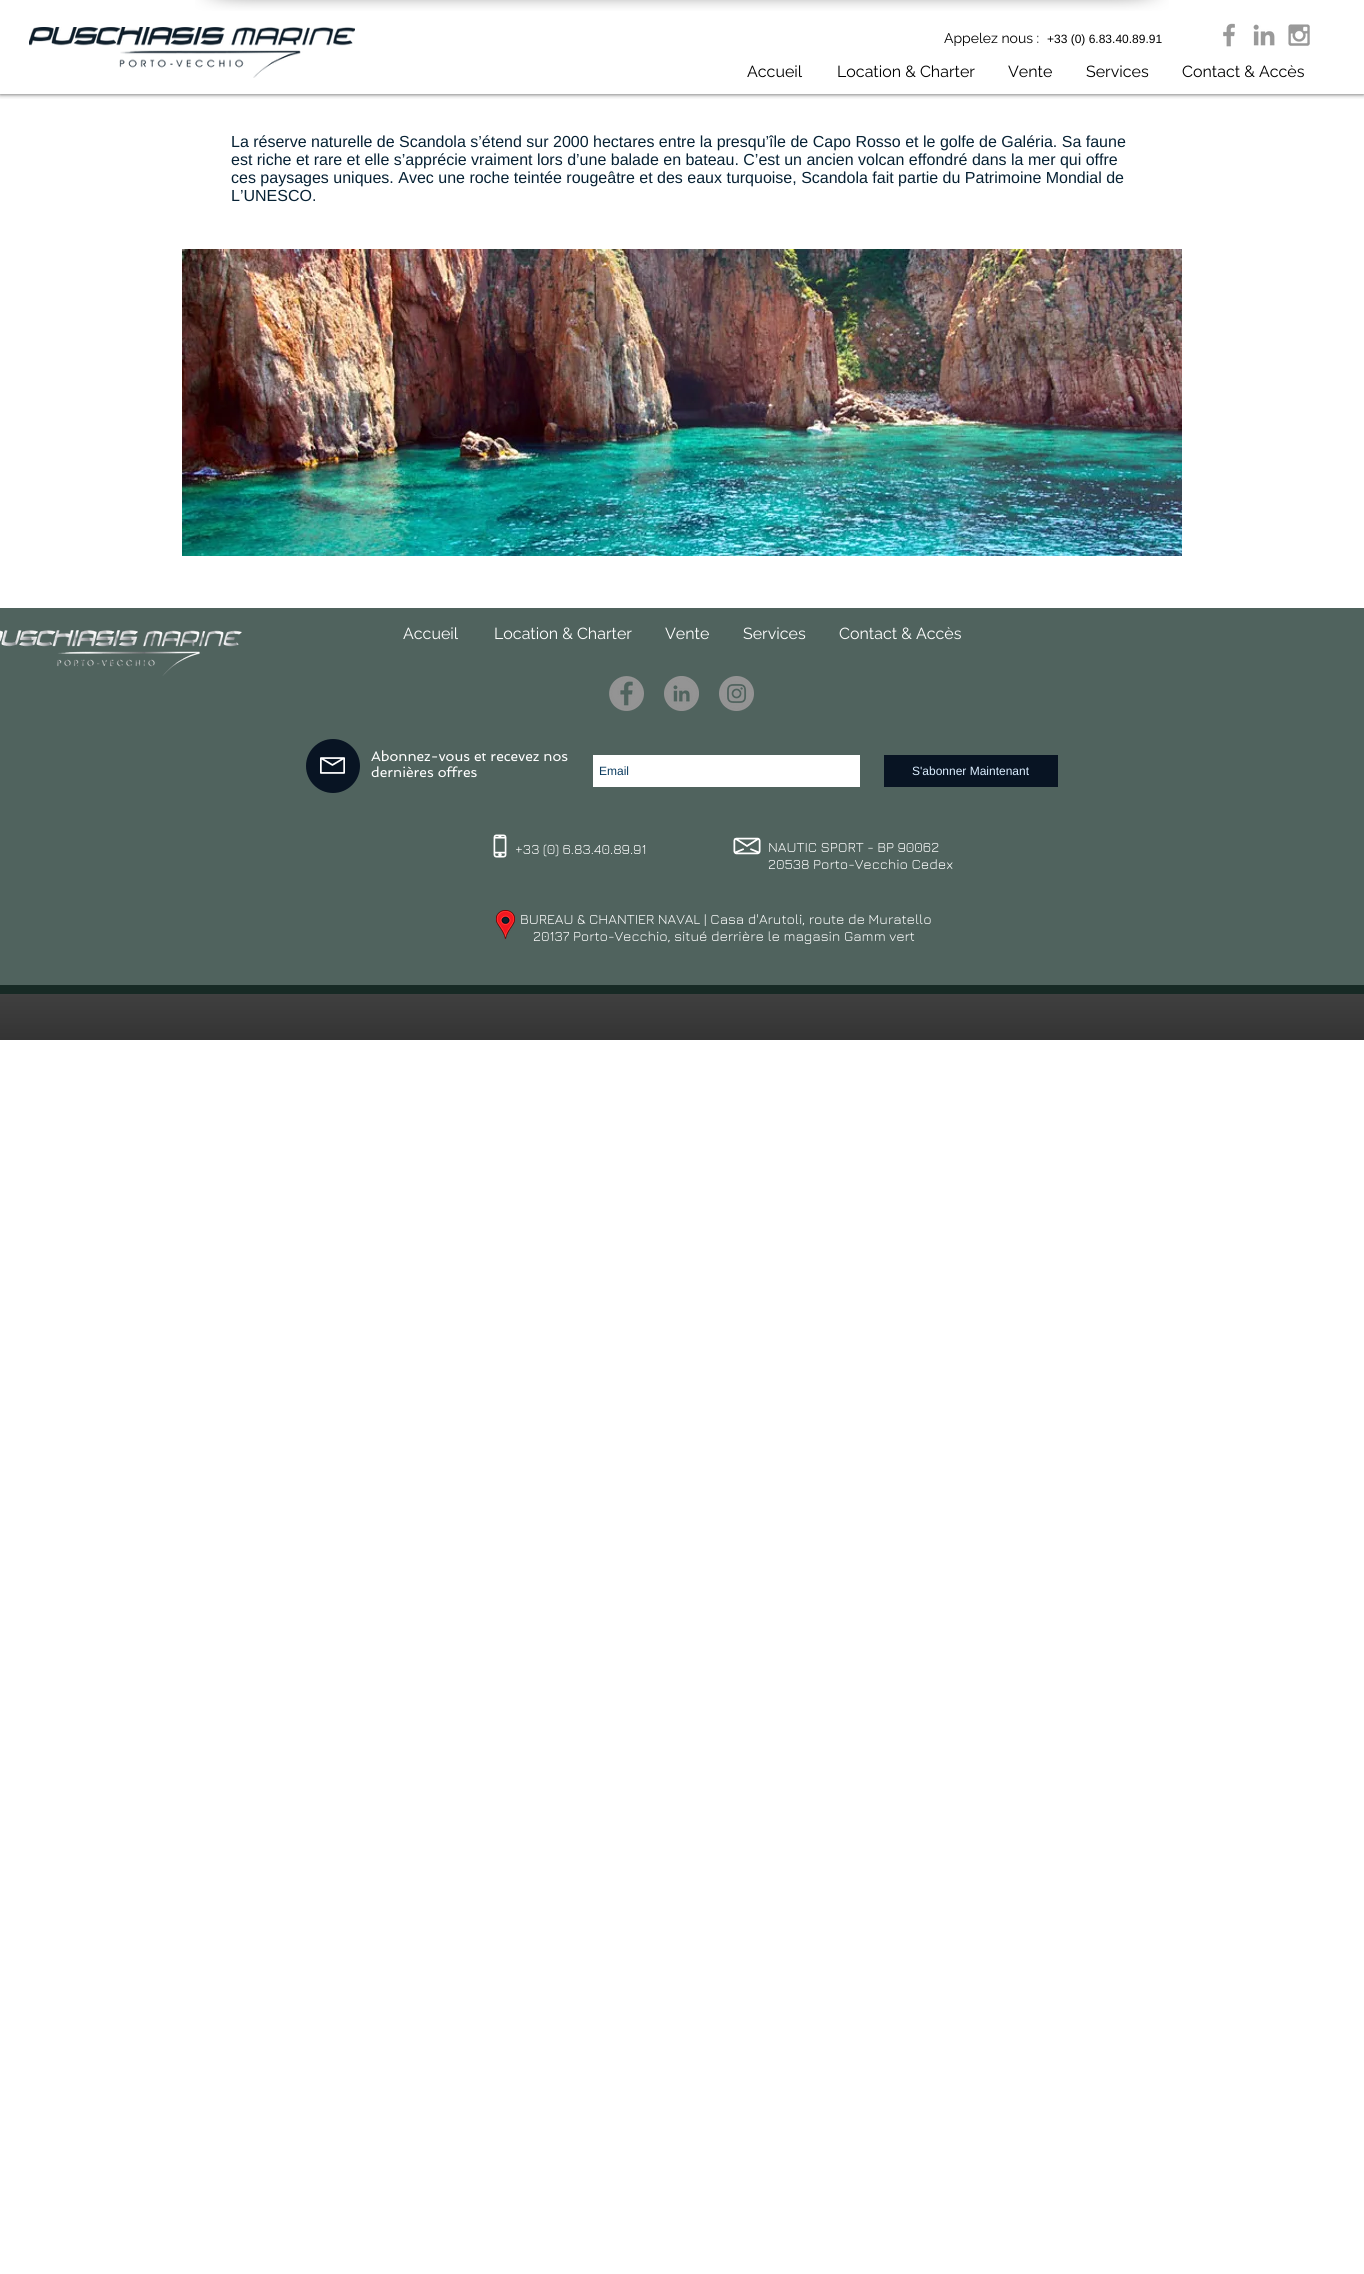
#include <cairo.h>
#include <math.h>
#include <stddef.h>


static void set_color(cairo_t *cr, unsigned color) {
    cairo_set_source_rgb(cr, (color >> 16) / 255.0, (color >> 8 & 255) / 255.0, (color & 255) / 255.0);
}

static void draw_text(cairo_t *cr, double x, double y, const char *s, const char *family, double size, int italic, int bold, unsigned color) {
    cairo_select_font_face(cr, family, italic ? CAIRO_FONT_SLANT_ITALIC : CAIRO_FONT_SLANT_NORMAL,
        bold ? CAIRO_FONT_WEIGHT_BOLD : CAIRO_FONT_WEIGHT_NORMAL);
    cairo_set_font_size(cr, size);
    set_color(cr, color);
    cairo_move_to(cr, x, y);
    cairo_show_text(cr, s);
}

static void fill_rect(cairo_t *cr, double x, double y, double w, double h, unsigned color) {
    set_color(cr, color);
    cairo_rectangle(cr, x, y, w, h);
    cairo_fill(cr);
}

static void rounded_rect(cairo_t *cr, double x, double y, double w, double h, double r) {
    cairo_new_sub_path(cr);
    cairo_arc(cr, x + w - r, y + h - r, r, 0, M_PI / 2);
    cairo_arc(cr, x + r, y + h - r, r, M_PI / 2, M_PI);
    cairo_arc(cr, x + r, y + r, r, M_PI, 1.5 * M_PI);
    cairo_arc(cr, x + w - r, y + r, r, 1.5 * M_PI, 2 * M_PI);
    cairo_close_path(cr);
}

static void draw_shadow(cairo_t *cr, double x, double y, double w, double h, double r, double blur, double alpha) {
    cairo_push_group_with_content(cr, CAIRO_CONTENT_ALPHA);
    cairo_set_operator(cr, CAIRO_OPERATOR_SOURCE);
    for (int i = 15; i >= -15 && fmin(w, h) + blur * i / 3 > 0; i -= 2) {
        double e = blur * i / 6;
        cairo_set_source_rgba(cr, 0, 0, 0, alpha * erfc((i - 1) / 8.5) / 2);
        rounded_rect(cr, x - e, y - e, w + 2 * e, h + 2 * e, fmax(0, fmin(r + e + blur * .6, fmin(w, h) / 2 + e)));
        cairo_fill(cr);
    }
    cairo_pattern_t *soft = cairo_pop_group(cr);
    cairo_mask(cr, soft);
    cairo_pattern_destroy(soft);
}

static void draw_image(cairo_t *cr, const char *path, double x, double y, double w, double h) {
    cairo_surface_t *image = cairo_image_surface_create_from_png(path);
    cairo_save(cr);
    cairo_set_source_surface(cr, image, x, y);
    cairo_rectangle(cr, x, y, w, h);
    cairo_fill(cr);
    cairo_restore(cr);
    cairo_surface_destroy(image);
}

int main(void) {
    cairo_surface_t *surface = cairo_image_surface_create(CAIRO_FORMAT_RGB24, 1364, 2274);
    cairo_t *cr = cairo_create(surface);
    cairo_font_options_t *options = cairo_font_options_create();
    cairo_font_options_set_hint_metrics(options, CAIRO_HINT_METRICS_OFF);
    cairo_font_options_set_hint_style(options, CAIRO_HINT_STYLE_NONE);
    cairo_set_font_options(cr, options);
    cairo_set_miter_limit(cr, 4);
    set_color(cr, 0xFFFFFF);
    cairo_paint(cr);
    draw_image(cr, "assets/img1.png", 195, 0, 97, 11);
    draw_image(cr, "assets/img2.png", 292, 0, 780, 11);
    draw_image(cr, "assets/img3.png", 1072, 0, 97, 11);
    cairo_save(cr);
    cairo_rectangle(cr, 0, 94, 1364, 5);
    cairo_clip(cr);
    set_color(cr, 0x000000);
    draw_shadow(cr, 0, 0, 1364, 94, 0, 2.5, 0.7);
    cairo_restore(cr);
    draw_image(cr, "assets/img4.png", 29, 27, 326, 51);
    draw_text(cr, 944, 43, "Appelez nous :", "Raleway", 14, 0, 0, 0x000000);
    draw_text(cr, 1047, 43, "+33 (0) 6.83.40.89.91", "Liberation Sans", 12, 0, 0, 0x000000);
    draw_image(cr, "assets/img5.png", 1223, 23, 12, 24);
    draw_image(cr, "assets/img6.png", 1253, 24, 22, 22);
    draw_image(cr, "assets/img7.png", 1288, 24, 22, 22);
    draw_text(cr, 747, 77, "Accueil", "Raleway", 16, 0, 0, 0x000000);
    draw_text(cr, 837, 77, "Location & Charter", "Raleway", 16, 0, 0, 0x000000);
    draw_text(cr, 1008, 77, "Vente", "Raleway", 16, 0, 0, 0x000000);
    draw_text(cr, 1086, 77, "Services", "Raleway", 16, 0, 0, 0x000000);
    draw_text(cr, 1182, 77, "Contact & Accès", "Raleway", 16, 0, 0, 0x000000);
    draw_text(cr, 231, 147, "La réserve naturelle de Scandola s’étend sur 2000 hectares entre la presqu’île de Capo Rosso et le golfe de Galéria. Sa faune", "Liberation Sans", 16, 0, 0, 0x062134);
    draw_text(cr, 231, 165, "est riche et rare et elle s’apprécie vraiment lors d’une balade en bateau. C’est un ancien volcan effondré dans la mer qui offre", "Liberation Sans", 16, 0, 0, 0x062134);
    draw_text(cr, 231, 183, "ces paysages uniques. Avec une roche teintée rougeâtre et des eaux turquoise, Scandola fait partie du Patrimoine Mondial de", "Liberation Sans", 16, 0, 0, 0x062134);
    draw_text(cr, 231, 201, "L’UNESCO.", "Liberation Sans", 16, 0, 0, 0x062134);
    draw_image(cr, "assets/img8.png", 182, 249, 1000, 307);
    fill_rect(cr, 0, 985, 1364, 55, 0x000000);
    draw_image(cr, "assets/img17.png", 0, 985, 1364, 55);
    cairo_set_source_rgba(cr, 0.027, 0.129, 0.106, 0.7);
    cairo_rectangle(cr, 0, 608, 1364, 386);
    cairo_fill(cr);
    draw_image(cr, "assets/img9.png", 0, 630, 242, 46);
    draw_text(cr, 403, 639, "Accueil", "Raleway", 16, 0, 0, 0xFFFFFF);
    draw_text(cr, 494, 639, "Location & Charter", "Raleway", 16, 0, 0, 0xFFFFFF);
    draw_text(cr, 665, 639, "Vente", "Raleway", 16, 0, 0, 0xFFFFFF);
    draw_text(cr, 743, 639, "Services", "Raleway", 16, 0, 0, 0xFFFFFF);
    draw_text(cr, 839, 639, "Contact & Accès", "Raleway", 16, 0, 0, 0xFFFFFF);
    draw_image(cr, "assets/img10.png", 609, 676, 35, 35);
    draw_image(cr, "assets/img11.png", 664, 676, 35, 35);
    draw_image(cr, "assets/img12.png", 719, 676, 35, 35);
    set_color(cr, 0x081423);
    cairo_arc(cr, 333, 766, 27, 0, 2 * M_PI);
    cairo_fill(cr);
    draw_image(cr, "assets/img13.png", 320, 757, 25, 17);
    draw_text(cr, 371, 761, "Abonnez-vous et recevez nos", "Spinnaker", 14, 0, 0, 0xFFFFFF);
    draw_text(cr, 371, 777, "dernières offres", "Spinnaker", 14, 0, 0, 0xFFFFFF);
    fill_rect(cr, 593, 755, 267, 32, 0xFFFFFF);
    draw_text(cr, 599, 775, "Email", "Liberation Sans", 12, 0, 0, 0x0C3C60);
    fill_rect(cr, 884, 755, 174, 32, 0x081423);
    draw_text(cr, 912, 775, "S'abonner Maintenant", "Liberation Sans", 12, 0, 0, 0xDAEDFF);
    draw_image(cr, "assets/img14.png", 493, 834, 14, 24);
    draw_text(cr, 515, 854, "+33 (0) 6.83.40.89.91", "Jura", 14, 0, 0, 0xFFFFFF);
    draw_image(cr, "assets/img15.png", 733, 837, 28, 18);
    draw_text(cr, 768, 852, "NAUTIC SPORT - BP 90062", "Jura", 14, 0, 0, 0xFFFFFF);
    draw_text(cr, 768, 869, "20538 Porto-Vecchio Cedex", "Jura", 14, 0, 0, 0xFFFFFF);
    draw_image(cr, "assets/img16.png", 496, 910, 19, 29);
    draw_text(cr, 520, 924, "BUREAU & CHANTIER NAVAL | Casa d'Arutoli, route de Muratello", "Jura", 14, 0, 0, 0xFFFFFF);
    draw_text(cr, 533, 941, "20137 Porto-Vecchio, situé derrière le magasin Gamm vert", "Jura", 14, 0, 0, 0xFFFFFF);
    cairo_surface_write_to_png(surface, "output.png");
    cairo_font_options_destroy(options);
    cairo_destroy(cr);
    cairo_surface_destroy(surface);
    return 0;
}
